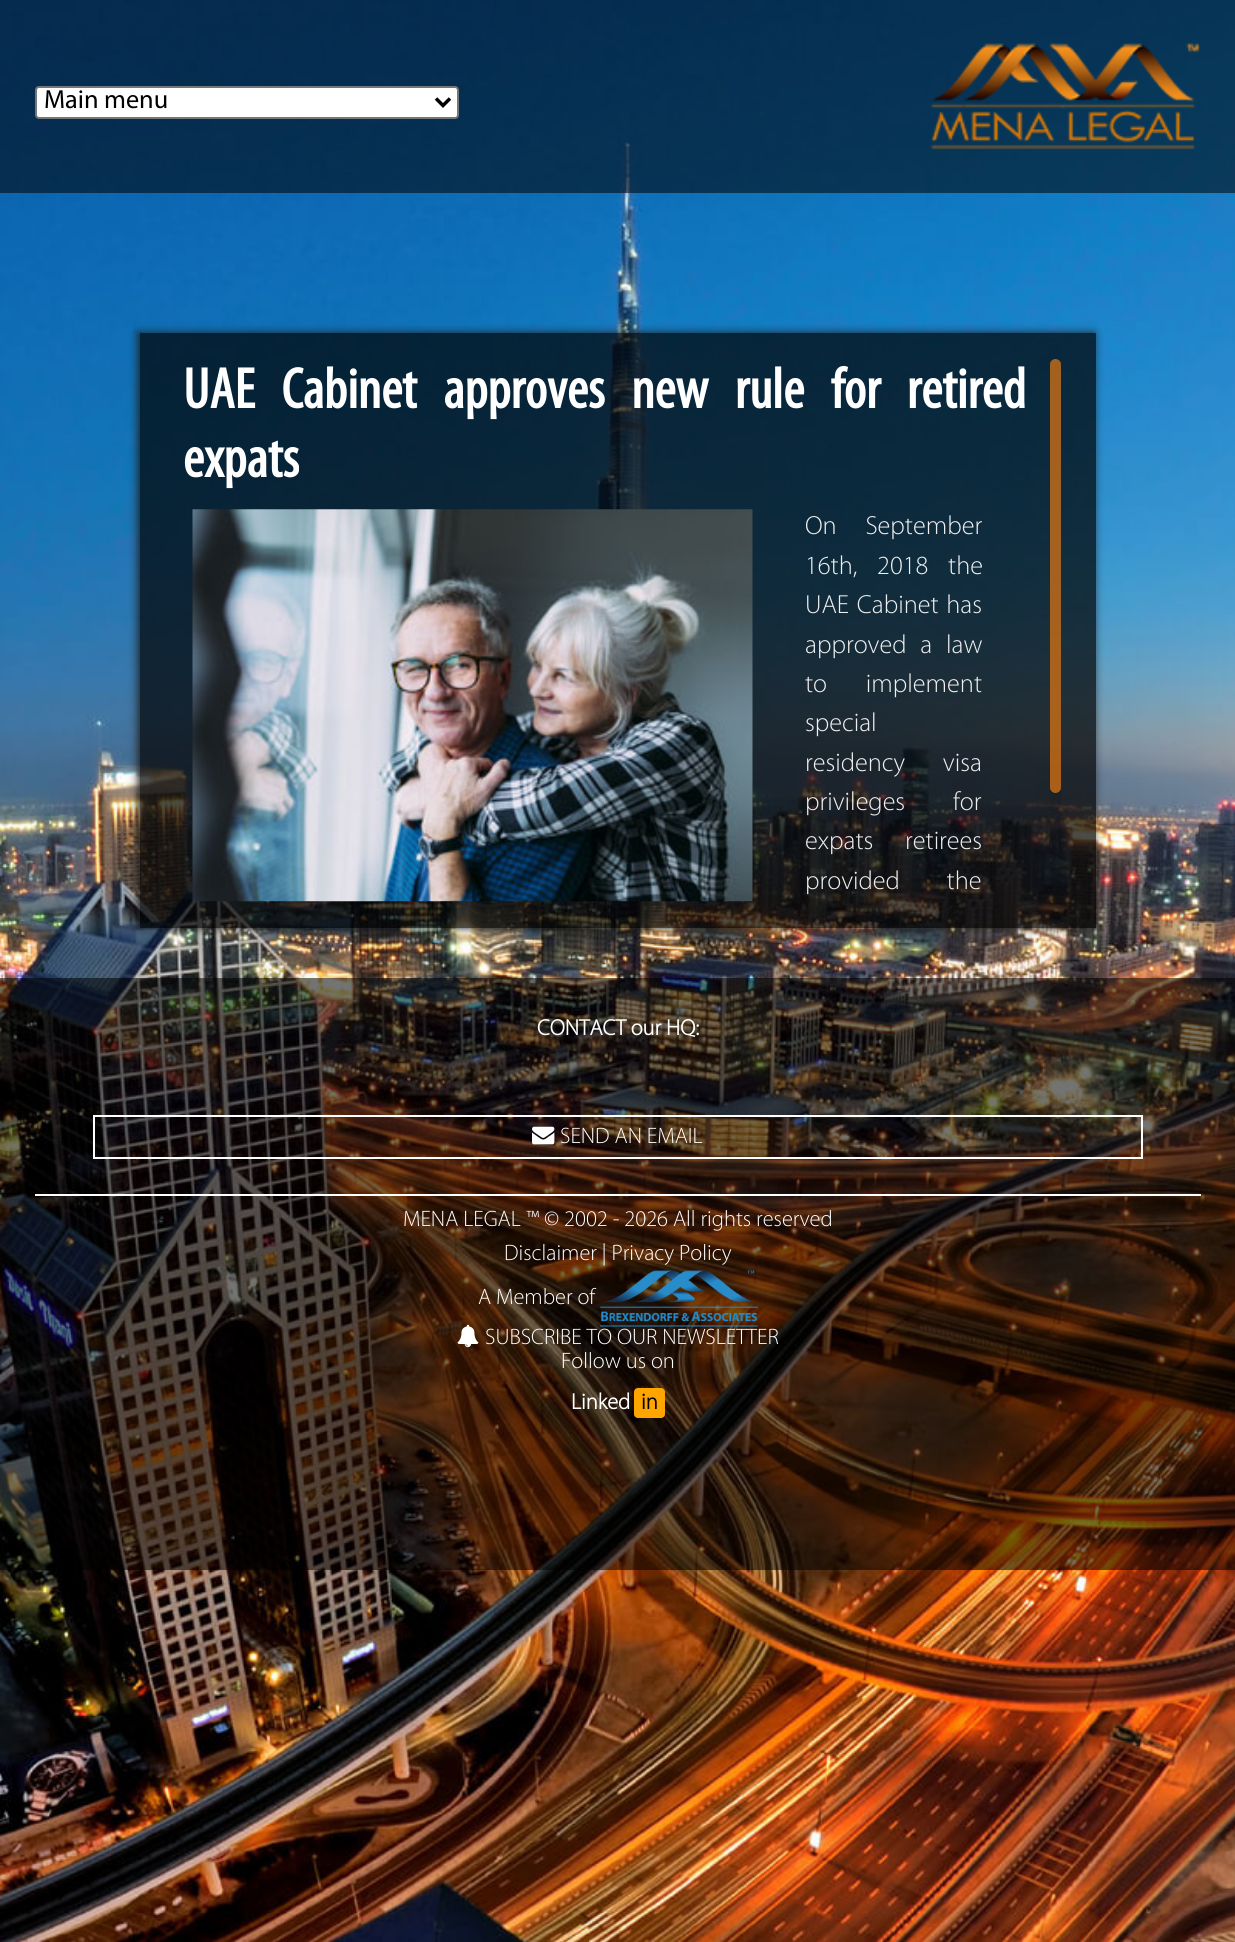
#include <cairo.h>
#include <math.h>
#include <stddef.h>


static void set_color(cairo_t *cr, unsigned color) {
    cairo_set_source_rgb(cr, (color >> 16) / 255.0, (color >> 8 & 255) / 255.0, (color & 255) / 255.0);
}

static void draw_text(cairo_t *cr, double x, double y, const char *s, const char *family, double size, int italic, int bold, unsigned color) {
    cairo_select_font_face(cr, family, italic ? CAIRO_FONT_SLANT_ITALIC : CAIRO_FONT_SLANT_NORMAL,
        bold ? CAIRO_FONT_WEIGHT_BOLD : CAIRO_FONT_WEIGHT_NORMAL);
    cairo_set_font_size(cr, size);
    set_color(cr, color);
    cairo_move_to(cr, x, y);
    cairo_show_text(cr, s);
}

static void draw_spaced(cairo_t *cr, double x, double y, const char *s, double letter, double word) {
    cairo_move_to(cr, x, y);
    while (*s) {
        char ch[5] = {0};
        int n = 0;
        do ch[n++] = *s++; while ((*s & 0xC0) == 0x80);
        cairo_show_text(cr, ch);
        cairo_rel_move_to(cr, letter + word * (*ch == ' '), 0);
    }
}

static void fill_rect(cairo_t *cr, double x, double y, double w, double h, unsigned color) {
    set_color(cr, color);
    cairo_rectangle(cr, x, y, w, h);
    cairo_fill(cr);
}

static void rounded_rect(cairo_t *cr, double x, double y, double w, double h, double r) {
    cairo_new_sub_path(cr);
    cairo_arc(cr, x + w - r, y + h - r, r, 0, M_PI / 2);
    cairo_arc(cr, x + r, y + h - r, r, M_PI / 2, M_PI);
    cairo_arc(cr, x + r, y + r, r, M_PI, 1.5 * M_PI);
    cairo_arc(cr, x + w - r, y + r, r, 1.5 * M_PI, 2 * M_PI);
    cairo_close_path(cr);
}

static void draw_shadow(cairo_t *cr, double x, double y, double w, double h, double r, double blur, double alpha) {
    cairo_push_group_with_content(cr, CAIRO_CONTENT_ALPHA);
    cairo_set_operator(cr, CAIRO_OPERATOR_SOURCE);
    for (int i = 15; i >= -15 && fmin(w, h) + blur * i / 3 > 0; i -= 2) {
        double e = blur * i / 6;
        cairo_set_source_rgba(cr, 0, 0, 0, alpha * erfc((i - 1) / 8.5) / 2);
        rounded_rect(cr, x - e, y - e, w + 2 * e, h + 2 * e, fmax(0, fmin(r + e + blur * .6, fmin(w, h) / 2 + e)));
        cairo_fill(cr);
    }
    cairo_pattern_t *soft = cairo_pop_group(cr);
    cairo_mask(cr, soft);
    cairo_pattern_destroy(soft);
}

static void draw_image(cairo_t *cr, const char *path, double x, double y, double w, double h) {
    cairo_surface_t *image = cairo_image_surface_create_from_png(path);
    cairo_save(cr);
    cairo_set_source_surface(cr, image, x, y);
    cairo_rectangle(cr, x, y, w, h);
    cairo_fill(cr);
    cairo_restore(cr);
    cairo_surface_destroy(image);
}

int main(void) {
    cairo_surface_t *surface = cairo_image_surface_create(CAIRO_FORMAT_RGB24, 1235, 1942);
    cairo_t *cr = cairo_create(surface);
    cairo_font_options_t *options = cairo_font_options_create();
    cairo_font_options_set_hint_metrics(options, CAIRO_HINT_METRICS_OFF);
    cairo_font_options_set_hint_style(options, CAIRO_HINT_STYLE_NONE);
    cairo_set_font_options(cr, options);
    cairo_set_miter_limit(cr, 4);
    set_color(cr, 0xFFFFFF);
    cairo_paint(cr);
    draw_image(cr, "assets/img1.png", 0, 0, 1235, 1942);
    cairo_set_source_rgba(cr, 0, 0, 0, 0.54);
    cairo_rectangle(cr, 0, 0, 1235, 193);
    cairo_fill(cr);
    set_color(cr, 0xFFFFFF);
    rounded_rect(cr, 36, 87, 422, 31, 3);
    cairo_fill_preserve(cr);
    set_color(cr, 0x767676);
    cairo_stroke(cr);
    cairo_new_path(cr);
    cairo_move_to(cr, 436, 98.5);
    cairo_line_to(cr, 443, 105.5);
    cairo_line_to(cr, 450, 98.5);
    set_color(cr, 0x000000);
    cairo_set_line_width(cr, 3.5);
    cairo_stroke(cr);
    draw_text(cr, 44, 108, "Main menu", "Myriad", 26.25, 0, 0, 0x000000);
    draw_image(cr, "assets/img2.png", 930, 43, 270, 107);
    cairo_save(cr);
    cairo_set_fill_rule(cr, CAIRO_FILL_RULE_EVEN_ODD);
    cairo_new_path(cr);
    cairo_move_to(cr, 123, 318);
    cairo_line_to(cr, 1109, 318);
    cairo_line_to(cr, 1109, 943);
    cairo_line_to(cr, 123, 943);
    cairo_close_path(cr);
    cairo_move_to(cr, 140, 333);
    cairo_line_to(cr, 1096, 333);
    cairo_line_to(cr, 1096, 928);
    cairo_line_to(cr, 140, 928);
    cairo_close_path(cr);
    cairo_clip(cr);
    set_color(cr, 0x1F1F1D);
    draw_shadow(cr, 138, 333, 956, 595, 0, 4.5, 1);
    cairo_restore(cr);
    cairo_set_source_rgba(cr, 0, 0, 0, 0.7);
    cairo_rectangle(cr, 140, 333, 956, 595);
    cairo_fill(cr);
    cairo_select_font_face(cr, "Myriad", CAIRO_FONT_SLANT_NORMAL, CAIRO_FONT_WEIGHT_BOLD);
    cairo_set_font_size(cr, 57.75);
    set_color(cr, 0xFFFFFF);
    draw_spaced(cr, 183, 408, "UAE Cabinet approves new rule for retired", 0, 17.5);
    draw_text(cr, 183, 477, "expats", "Myriad", 57.75, 0, 1, 0xFFFFFF);
    draw_image(cr, "assets/img3.png", 192, 509, 561, 393);
    cairo_select_font_face(cr, "Myriad Light", CAIRO_FONT_SLANT_NORMAL, CAIRO_FONT_WEIGHT_NORMAL);
    cairo_set_font_size(cr, 26.25);
    set_color(cr, 0xEFEFEF);
    draw_spaced(cr, 805, 534, "On September", 0, 23);
    draw_spaced(cr, 805, 574, "16th, 2018 the", 0, 14);
    draw_spaced(cr, 805, 613, "UAE Cabinet has", 0, 2);
    draw_spaced(cr, 805, 653, "approved a law", 0, 8);
    draw_spaced(cr, 805, 692, "to implement", 0, 33);
    draw_text(cr, 805, 731, "special", "Myriad Light", 26.25, 0, 0, 0xEFEFEF);
    draw_spaced(cr, 805, 771, "residency visa", 0, 32);
    draw_spaced(cr, 805, 810, "privileges for", 0, 42);
    draw_spaced(cr, 805, 849, "expats retirees", 0, 26);
    draw_spaced(cr, 805, 889, "provided the", 0, 41);
    cairo_set_source_rgba(cr, 0, 0, 0, 0.08);
    rounded_rect(cr, 1050, 359, 11, 542, 5.5);
    cairo_fill(cr);
    cairo_set_source_rgba(cr, 0.922, 0.486, 0.078, 0.68);
    rounded_rect(cr, 1050, 359, 11, 434, 5.5);
    cairo_fill(cr);
    cairo_set_source_rgba(cr, 0, 0, 0, 0.54);
    cairo_rectangle(cr, 0, 978, 1235, 592);
    cairo_fill(cr);
    draw_text(cr, 537, 1035, "CONTACT our HQ:", "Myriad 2", 22.4, 0, 1, 0xFFFFFF);
    cairo_rectangle(cr, 94, 1116, 1048, 42);
    cairo_set_line_width(cr, 2);
    cairo_stroke(cr);
    draw_image(cr, "assets/img4.png", 532, 1126, 23, 19);
    draw_text(cr, 560, 1143, "SEND AN EMAIL", "Myriad Light", 22.4, 0, 0, 0xFFFFFF);
    fill_rect(cr, 35, 1194, 1166, 2, 0xFFFFFF);
    draw_text(cr, 403, 1226, "MENA LEGAL ™ © 2002 - 2026 All rights reserved", "Myriad Light", 22.4, 0, 0, 0xFFFFFF);
    draw_text(cr, 504, 1260, "Disclaimer | Privacy Policy", "Myriad Light", 22.4, 0, 0, 0xFFFFFF);
    draw_text(cr, 478, 1304, "A Member of", "Myriad Light", 22.4, 0, 0, 0xFFFFFF);
    draw_image(cr, "assets/img5.png", 600, 1270, 158, 57);
    draw_image(cr, "assets/img6.png", 457, 1324, 22, 24);
    draw_text(cr, 485, 1344, "SUBSCRIBE TO OUR NEWSLETTER", "Myriad Light", 22.4, 0, 0, 0xFFFFFF);
    draw_text(cr, 561, 1368, "Follow us on", "Myriad Light", 22.4, 0, 0, 0xFFFFFF);
    draw_text(cr, 571, 1409, "Linked", "Myriad 2", 22.4, 0, 1, 0xFFFFFF);
    set_color(cr, 0xFFA500);
    rounded_rect(cr, 634, 1388, 31, 30, 4);
    cairo_fill(cr);
    draw_text(cr, 641, 1409, "in", "Myriad 2", 22.4, 0, 1, 0x000000);
    cairo_surface_write_to_png(surface, "output.png");
    cairo_font_options_destroy(options);
    cairo_destroy(cr);
    cairo_surface_destroy(surface);
    return 0;
}
